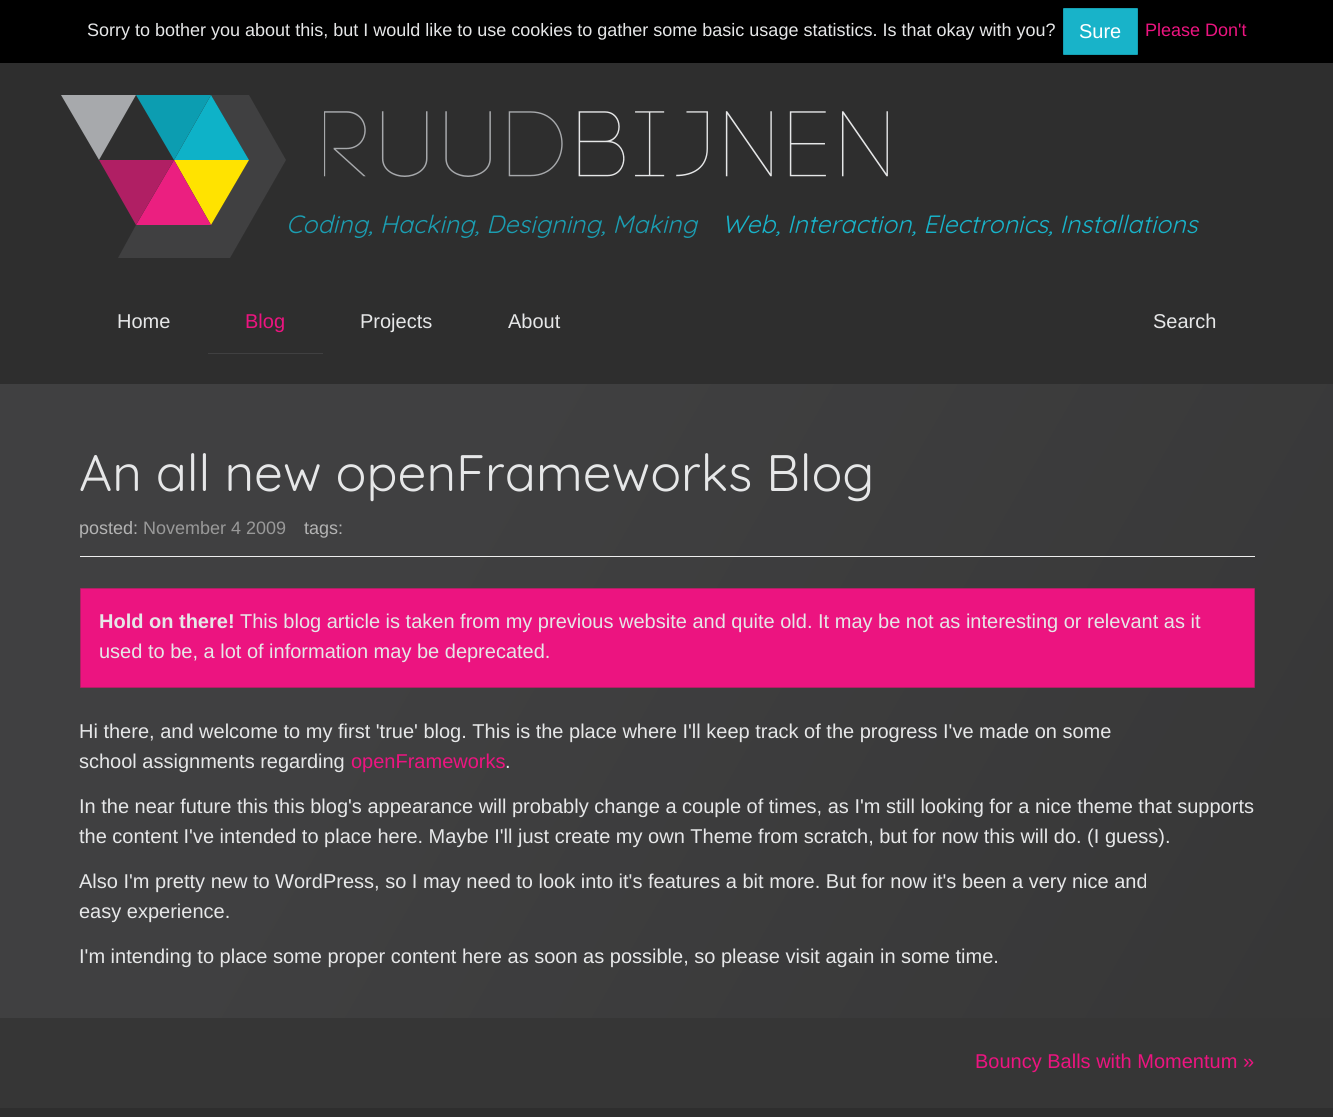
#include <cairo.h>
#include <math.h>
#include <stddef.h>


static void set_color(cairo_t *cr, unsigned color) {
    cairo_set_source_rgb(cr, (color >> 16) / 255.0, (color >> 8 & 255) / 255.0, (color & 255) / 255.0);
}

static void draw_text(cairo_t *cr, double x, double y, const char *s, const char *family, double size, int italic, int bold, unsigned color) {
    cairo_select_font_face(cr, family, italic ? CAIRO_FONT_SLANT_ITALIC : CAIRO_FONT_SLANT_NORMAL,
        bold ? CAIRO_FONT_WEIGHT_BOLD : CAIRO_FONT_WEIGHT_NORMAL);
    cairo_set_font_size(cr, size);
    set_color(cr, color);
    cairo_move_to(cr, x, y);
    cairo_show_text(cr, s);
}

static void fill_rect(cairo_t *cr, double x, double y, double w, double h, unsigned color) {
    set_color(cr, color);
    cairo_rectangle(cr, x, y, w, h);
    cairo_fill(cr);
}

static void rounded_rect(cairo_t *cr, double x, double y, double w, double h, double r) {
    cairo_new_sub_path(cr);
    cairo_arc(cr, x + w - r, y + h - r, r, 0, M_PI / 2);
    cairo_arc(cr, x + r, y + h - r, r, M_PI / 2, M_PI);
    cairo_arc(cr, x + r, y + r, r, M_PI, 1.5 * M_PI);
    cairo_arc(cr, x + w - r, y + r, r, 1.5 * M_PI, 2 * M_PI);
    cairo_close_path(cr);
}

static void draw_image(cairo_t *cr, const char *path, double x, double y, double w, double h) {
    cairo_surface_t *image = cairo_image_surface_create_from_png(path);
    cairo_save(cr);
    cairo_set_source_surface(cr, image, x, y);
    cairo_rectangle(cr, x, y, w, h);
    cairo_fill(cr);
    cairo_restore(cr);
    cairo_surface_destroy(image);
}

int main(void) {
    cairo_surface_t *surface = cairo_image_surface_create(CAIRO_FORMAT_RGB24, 1333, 1117);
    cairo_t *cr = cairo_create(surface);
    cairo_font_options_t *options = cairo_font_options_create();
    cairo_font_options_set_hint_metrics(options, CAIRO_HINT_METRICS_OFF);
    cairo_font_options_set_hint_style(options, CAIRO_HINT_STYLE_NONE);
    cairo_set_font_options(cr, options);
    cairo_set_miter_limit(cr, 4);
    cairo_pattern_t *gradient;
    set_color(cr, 0x2E2E2E);
    cairo_paint(cr);
    fill_rect(cr, 0, 0, 1333, 63, 0x000000);
    draw_text(cr, 87, 36, "Sorry to bother you about this, but I would like to use cookies to gather some basic usage statistics. Is that okay with you?", "Liberation Sans", 18, 0, 0, 0xE6E7E8);
    set_color(cr, 0x18B3C9);
    rounded_rect(cr, 1063.5, 8.5, 74, 46, 0.5);
    cairo_fill_preserve(cr);
    set_color(cr, 0x159FB2);
    cairo_set_line_width(cr, 1);
    cairo_stroke(cr);
    draw_text(cr, 1079, 38, "Sure", "Liberation Sans", 20, 0, 0, 0xFFFFFF);
    draw_text(cr, 1145, 36, "Please Don't", "Liberation Sans", 18, 0, 0, 0xEC1480);
    set_color(cr, 0x404041);
    cairo_new_path(cr);
    cairo_move_to(cr, 211, 95);
    cairo_line_to(cr, 249, 160);
    cairo_line_to(cr, 211, 225);
    cairo_line_to(cr, 136, 225);
    cairo_line_to(cr, 118, 258);
    cairo_line_to(cr, 230, 258);
    cairo_line_to(cr, 286, 160);
    cairo_line_to(cr, 249, 95);
    cairo_close_path(cr);
    cairo_fill(cr);
    set_color(cr, 0xFFE300);
    cairo_new_path(cr);
    cairo_move_to(cr, 249, 160);
    cairo_line_to(cr, 211, 225);
    cairo_line_to(cr, 174, 160);
    cairo_close_path(cr);
    cairo_fill(cr);
    set_color(cr, 0x0EB2C8);
    cairo_new_path(cr);
    cairo_move_to(cr, 174, 160);
    cairo_line_to(cr, 211, 95);
    cairo_line_to(cr, 249, 160);
    cairo_close_path(cr);
    cairo_fill(cr);
    set_color(cr, 0xEB1F80);
    cairo_new_path(cr);
    cairo_move_to(cr, 136, 225);
    cairo_line_to(cr, 174, 160);
    cairo_line_to(cr, 211, 225);
    cairo_close_path(cr);
    cairo_fill(cr);
    set_color(cr, 0xB01F64);
    cairo_new_path(cr);
    cairo_move_to(cr, 174, 160);
    cairo_line_to(cr, 136, 225);
    cairo_line_to(cr, 99, 160);
    cairo_close_path(cr);
    cairo_fill(cr);
    set_color(cr, 0x0C9DB1);
    cairo_new_path(cr);
    cairo_move_to(cr, 211, 95);
    cairo_line_to(cr, 174, 160);
    cairo_line_to(cr, 136, 95);
    cairo_close_path(cr);
    cairo_fill(cr);
    set_color(cr, 0xA7A9AC);
    cairo_new_path(cr);
    cairo_move_to(cr, 136, 95);
    cairo_line_to(cr, 99, 160);
    cairo_line_to(cr, 61, 95);
    cairo_close_path(cr);
    cairo_fill(cr);
    draw_image(cr, "assets/img1.png", 324, 111, 564, 66);
    draw_text(cr, 286, 233, "Coding, Hacking, Designing, Making", "Quicksand", 25, 1, 0, 0x1B9DB1);
    draw_text(cr, 722, 233, "Web, Interaction, Electronics, Installations", "Quicksand", 25, 1, 0, 0x18B3C9);
    draw_text(cr, 117, 328, "Home", "Liberation Sans", 20, 0, 0, 0xE6E7E8);
    fill_rect(cr, 208, 353, 115, 1, 0x404041);
    draw_text(cr, 245, 328, "Blog", "Liberation Sans", 20, 0, 0, 0xEC1480);
    draw_text(cr, 360, 328, "Projects", "Liberation Sans", 20, 0, 0, 0xE6E7E8);
    draw_text(cr, 508, 328, "About", "Liberation Sans", 20, 0, 0, 0xE6E7E8);
    draw_text(cr, 1153, 328, "Search", "Liberation Sans", 20, 0, 0, 0xE6E7E8);
    gradient = cairo_pattern_create_linear(10, 366, 1324, 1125);
    cairo_pattern_add_color_stop_rgba(gradient, 0.3, 0.251, 0.251, 0.255, 1);
    cairo_pattern_add_color_stop_rgba(gradient, 1, 0.212, 0.212, 0.212, 1);
    cairo_set_source(cr, gradient);
    cairo_pattern_destroy(gradient);
    cairo_rectangle(cr, 0, 384, 1333, 634);
    cairo_fill(cr);
    fill_rect(cr, 80, 556, 1175, 1, 0xEEEEEE);
    draw_text(cr, 79, 491, "An all new openFrameworks Blog", "Quicksand", 51.25, 0, 0, 0xE6E7E8);
    draw_text(cr, 79, 534, "posted:", "Liberation Sans", 18, 0, 0, 0xB3B3B3);
    draw_text(cr, 143, 534, "November 4 2009", "Liberation Sans", 18, 0, 0, 0x999999);
    draw_text(cr, 304, 534, "tags:", "Liberation Sans", 18, 0, 0, 0xB3B3B3);
    set_color(cr, 0xEC1480);
    rounded_rect(cr, 80.5, 588.5, 1174, 99, 0.5);
    cairo_fill_preserve(cr);
    set_color(cr, 0xB12065);
    cairo_stroke(cr);
    draw_text(cr, 99, 628, "Hold on there!", "Liberation Sans", 20, 0, 1, 0xE6E7E8);
    draw_text(cr, 240, 628, "This blog article is taken from my previous website and quite old. It may be not as interesting or relevant as it", "Liberation Sans", 20, 0, 0, 0xE6E7E8);
    draw_text(cr, 99, 658, "used to be, a lot of information may be deprecated.", "Liberation Sans", 20, 0, 0, 0xE6E7E8);
    draw_text(cr, 79, 738, "Hi there, and welcome to my first 'true' blog. This is the place where I'll keep track of the progress I've made on some", "Liberation Sans", 20, 0, 0, 0xE6E7E8);
    draw_text(cr, 79, 768, "school assignments regarding", "Liberation Sans", 20, 0, 0, 0xE6E7E8);
    draw_text(cr, 351, 768, "openFrameworks", "Liberation Sans", 20, 0, 0, 0xEC1480);
    draw_text(cr, 505, 768, ".", "Liberation Sans", 20, 0, 0, 0xE6E7E8);
    draw_text(cr, 79, 813, "In the near future this this blog's appearance will probably change a couple of times, as I'm still looking for a nice theme that supports", "Liberation Sans", 20, 0, 0, 0xE6E7E8);
    draw_text(cr, 79, 843, "the content I've intended to place here. Maybe I'll just create my own Theme from scratch, but for now this will do. (I guess).", "Liberation Sans", 20, 0, 0, 0xE6E7E8);
    draw_text(cr, 79, 888, "Also I'm pretty new to WordPress, so I may need to look into it's features a bit more. But for now it's been a very nice and", "Liberation Sans", 20, 0, 0, 0xE6E7E8);
    draw_text(cr, 79, 918, "easy experience.", "Liberation Sans", 20, 0, 0, 0xE6E7E8);
    draw_text(cr, 79, 963, "I'm intending to place some proper content here as soon as possible, so please visit again in some time.", "Liberation Sans", 20, 0, 0, 0xE6E7E8);
    fill_rect(cr, 0, 1018, 1333, 90, 0x363636);
    draw_text(cr, 975, 1068, "Bouncy Balls with Momentum »", "Liberation Sans", 20, 0, 0, 0xEC1480);
    cairo_surface_write_to_png(surface, "output.png");
    cairo_font_options_destroy(options);
    cairo_destroy(cr);
    cairo_surface_destroy(surface);
    return 0;
}
